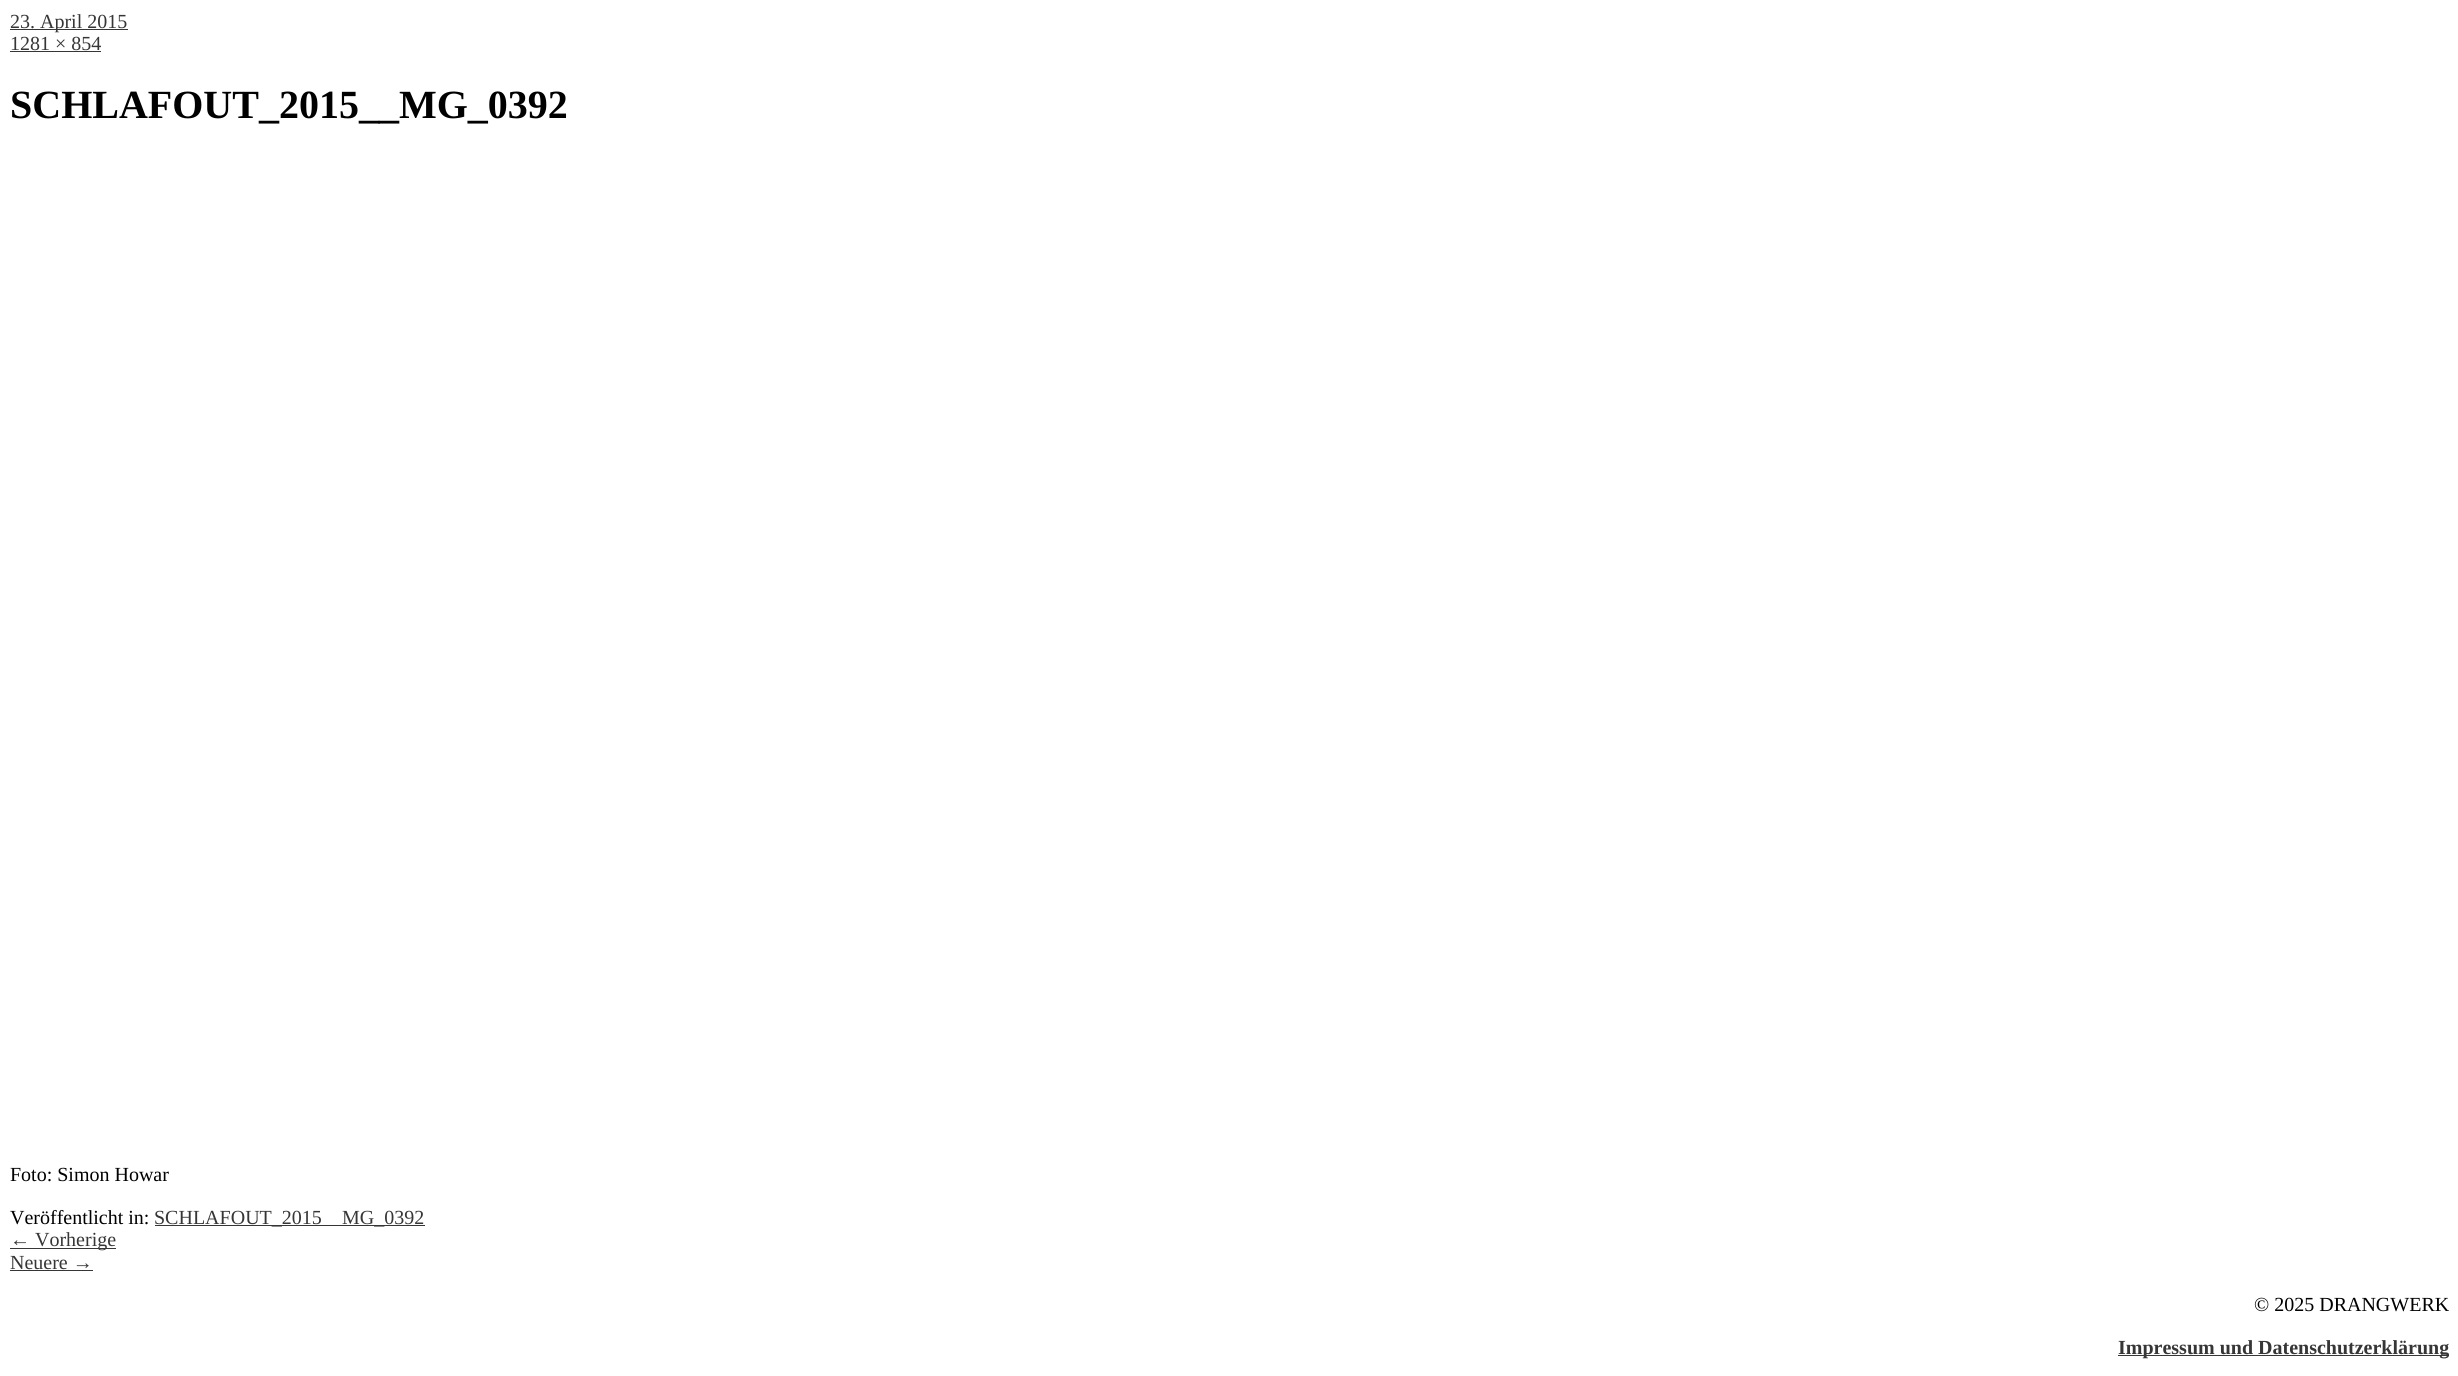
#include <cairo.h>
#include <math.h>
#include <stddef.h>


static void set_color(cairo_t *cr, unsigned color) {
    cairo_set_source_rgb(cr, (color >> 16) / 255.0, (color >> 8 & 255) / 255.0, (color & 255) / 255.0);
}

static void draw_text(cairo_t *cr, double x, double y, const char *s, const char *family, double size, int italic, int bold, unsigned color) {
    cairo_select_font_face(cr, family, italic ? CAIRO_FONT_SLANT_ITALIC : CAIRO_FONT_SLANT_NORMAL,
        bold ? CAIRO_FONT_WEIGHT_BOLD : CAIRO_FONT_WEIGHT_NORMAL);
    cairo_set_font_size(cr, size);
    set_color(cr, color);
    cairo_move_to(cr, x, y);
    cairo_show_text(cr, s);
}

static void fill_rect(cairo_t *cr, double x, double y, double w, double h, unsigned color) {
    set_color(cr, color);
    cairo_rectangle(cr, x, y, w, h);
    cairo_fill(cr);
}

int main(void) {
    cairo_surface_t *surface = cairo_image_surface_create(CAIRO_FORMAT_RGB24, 2458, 1376);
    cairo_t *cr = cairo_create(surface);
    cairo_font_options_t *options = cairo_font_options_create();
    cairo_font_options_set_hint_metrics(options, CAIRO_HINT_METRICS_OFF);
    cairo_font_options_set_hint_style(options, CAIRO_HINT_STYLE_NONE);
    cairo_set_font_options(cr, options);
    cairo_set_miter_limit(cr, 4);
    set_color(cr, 0xFFFFFF);
    cairo_paint(cr);
    fill_rect(cr, 10, 29, 118, 1, 0x363636);
    draw_text(cr, 10, 28, "23. April 2015", "Liberation Serif", 20, 0, 0, 0x363636);
    draw_text(cr, 10, 50, "1281 × 854", "Liberation Serif", 20, 0, 0, 0x363636);
    fill_rect(cr, 10, 51, 91, 1, 0x363636);
    draw_text(cr, 10, 118, "SCHLAFOUT_2015__MG_0392", "Liberation Serif", 40, 0, 1, 0x000000);
    draw_text(cr, 10, 1181, "Foto: Simon Howar", "Liberation Serif", 20, 0, 0, 0x000000);
    draw_text(cr, 10, 1224, "Veröffentlicht in:", "Liberation Serif", 20, 0, 0, 0x000000);
    fill_rect(cr, 155, 1225, 270, 1, 0x363636);
    draw_text(cr, 154, 1224, "SCHLAFOUT_2015", "Liberation Serif", 20, 0, 0, 0x363636);
    draw_text(cr, 342, 1224, "MG_0392", "Liberation Serif", 20, 0, 0, 0x363636);
    fill_rect(cr, 10, 1248, 106, 1, 0x363636);
    draw_text(cr, 10, 1246, "← Vorherige", "Liberation Serif", 20, 0, 0, 0x363636);
    draw_text(cr, 10, 1269, "Neuere →", "Liberation Serif", 20, 0, 0, 0x363636);
    fill_rect(cr, 10, 1270, 83, 1, 0x363636);
    draw_text(cr, 2254, 1311, "© 2025 DRANGWERK", "Liberation Serif", 20, 0, 0, 0x000000);
    fill_rect(cr, 2118, 1355, 331, 1, 0x363636);
    draw_text(cr, 2118, 1354, "Impressum und Datenschutzerklärung", "Liberation Serif", 20, 0, 1, 0x363636);
    cairo_surface_write_to_png(surface, "output.png");
    cairo_font_options_destroy(options);
    cairo_destroy(cr);
    cairo_surface_destroy(surface);
    return 0;
}
